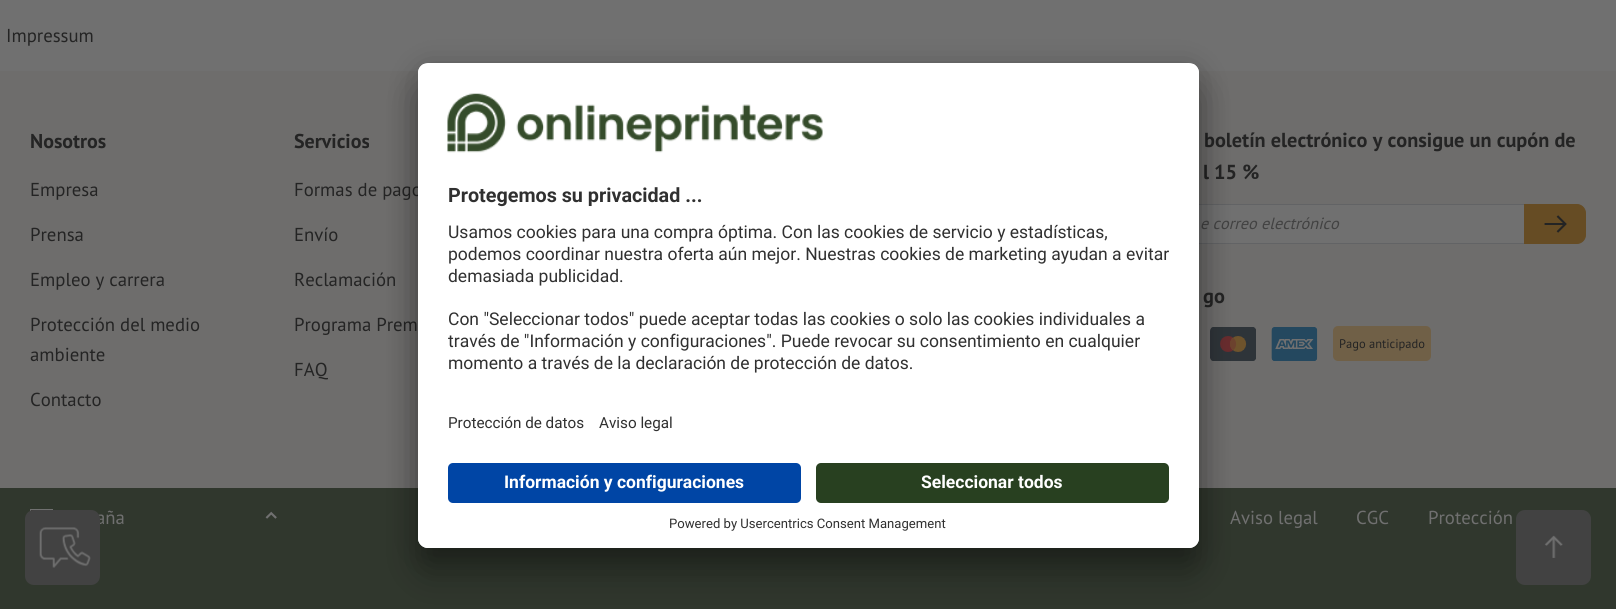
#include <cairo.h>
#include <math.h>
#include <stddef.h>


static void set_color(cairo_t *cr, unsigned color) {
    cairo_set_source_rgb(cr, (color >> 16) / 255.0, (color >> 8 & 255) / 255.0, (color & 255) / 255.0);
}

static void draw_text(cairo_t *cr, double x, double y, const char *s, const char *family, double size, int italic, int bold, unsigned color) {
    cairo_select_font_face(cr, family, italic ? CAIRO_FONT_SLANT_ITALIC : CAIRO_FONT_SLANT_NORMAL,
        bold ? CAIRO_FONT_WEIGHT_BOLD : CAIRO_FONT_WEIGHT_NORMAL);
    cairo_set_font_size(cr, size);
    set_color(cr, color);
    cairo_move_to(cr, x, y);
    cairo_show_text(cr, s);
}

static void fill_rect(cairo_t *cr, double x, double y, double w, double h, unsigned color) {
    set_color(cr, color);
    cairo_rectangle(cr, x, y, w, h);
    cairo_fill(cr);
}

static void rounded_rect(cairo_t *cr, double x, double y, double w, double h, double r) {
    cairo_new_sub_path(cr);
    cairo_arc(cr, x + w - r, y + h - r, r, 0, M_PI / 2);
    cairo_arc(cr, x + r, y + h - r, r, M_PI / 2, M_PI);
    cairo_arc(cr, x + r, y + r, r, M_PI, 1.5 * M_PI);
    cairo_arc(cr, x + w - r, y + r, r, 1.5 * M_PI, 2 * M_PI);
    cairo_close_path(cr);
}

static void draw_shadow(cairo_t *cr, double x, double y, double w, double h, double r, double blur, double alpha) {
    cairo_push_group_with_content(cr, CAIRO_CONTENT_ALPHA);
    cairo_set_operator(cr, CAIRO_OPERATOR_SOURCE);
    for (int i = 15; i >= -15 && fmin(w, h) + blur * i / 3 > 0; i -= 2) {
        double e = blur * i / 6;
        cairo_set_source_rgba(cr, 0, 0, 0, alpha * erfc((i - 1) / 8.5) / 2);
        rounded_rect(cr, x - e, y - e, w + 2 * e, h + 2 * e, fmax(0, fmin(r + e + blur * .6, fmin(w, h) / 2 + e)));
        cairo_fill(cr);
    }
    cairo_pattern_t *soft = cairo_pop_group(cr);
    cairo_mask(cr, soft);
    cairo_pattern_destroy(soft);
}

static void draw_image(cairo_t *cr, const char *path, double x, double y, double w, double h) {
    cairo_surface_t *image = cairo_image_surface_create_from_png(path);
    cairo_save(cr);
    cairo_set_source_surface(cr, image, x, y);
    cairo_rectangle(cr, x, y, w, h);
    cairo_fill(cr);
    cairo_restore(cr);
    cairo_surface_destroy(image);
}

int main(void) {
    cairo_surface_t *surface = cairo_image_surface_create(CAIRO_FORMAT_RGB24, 1616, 609);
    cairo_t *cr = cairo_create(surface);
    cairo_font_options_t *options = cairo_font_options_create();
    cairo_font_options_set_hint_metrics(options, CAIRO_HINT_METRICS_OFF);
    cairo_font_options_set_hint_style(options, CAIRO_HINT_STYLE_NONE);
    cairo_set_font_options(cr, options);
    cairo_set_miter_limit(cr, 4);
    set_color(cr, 0x707070);
    cairo_paint(cr);
    draw_text(cr, 6, 42, "Impressum", "PT Sans", 18.75, 0, 0, 0x242424);
    fill_rect(cr, 0, 71, 1616, 417, 0x6E6D6C);
    draw_text(cr, 30, 148, "Nosotros", "PT Sans", 20, 0, 1, 0x242424);
    draw_text(cr, 30, 196, "Empresa", "PT Sans", 18.75, 0, 0, 0x242424);
    draw_text(cr, 30, 241, "Prensa", "PT Sans", 18.75, 0, 0, 0x242424);
    draw_text(cr, 30, 286, "Empleo y carrera", "PT Sans", 18.75, 0, 0, 0x242424);
    draw_text(cr, 30, 331, "Protección del medio", "PT Sans", 18.75, 0, 0, 0x242424);
    draw_text(cr, 30, 361, "ambiente", "PT Sans", 18.75, 0, 0, 0x242424);
    draw_text(cr, 30, 406, "Contacto", "PT Sans", 18.75, 0, 0, 0x242424);
    draw_text(cr, 294, 148, "Servicios", "PT Sans", 20, 0, 1, 0x242424);
    draw_text(cr, 294, 196, "Formas de pago", "PT Sans", 18.75, 0, 0, 0x242424);
    draw_text(cr, 294, 241, "Envío", "PT Sans", 18.75, 0, 0, 0x242424);
    draw_text(cr, 294, 286, "Reclamación", "PT Sans", 18.75, 0, 0, 0x242424);
    draw_text(cr, 294, 331, "Programa Prem", "PT Sans", 18.75, 0, 0, 0x242424);
    draw_text(cr, 294, 376, "FAQ", "PT Sans", 18.75, 0, 0, 0x242424);
    draw_text(cr, 1204, 147, "boletín electrónico y consigue un cupón de", "PT Sans", 20.3, 0, 1, 0x242424);
    draw_text(cr, 1203, 179, "l 15 %", "PT Sans", 20.3, 0, 1, 0x242424);
    fill_rect(cr, 1199, 205, 325, 38, 0x707070);
    cairo_rectangle(cr, 1088.5, 204.5, 436, 39);
    set_color(cr, 0x626365);
    cairo_set_line_width(cr, 1);
    cairo_stroke(cr);
    draw_text(cr, 1200, 229, "e correo electrónico", "PT Sans", 16.25, 1, 0, 0x424242);
    set_color(cr, 0x664C24);
    cairo_new_path(cr);
    cairo_move_to(cr, 1524.5, 204.5);
    cairo_line_to(cr, 1577, 204.5);
    cairo_curve_to(cr, 1581.5, 204.5, 1585.5, 208.5, 1585.5, 213);
    cairo_line_to(cr, 1585.5, 235);
    cairo_curve_to(cr, 1585.5, 239.5, 1581.5, 243.5, 1577, 243.5);
    cairo_line_to(cr, 1524.5, 243.5);
    cairo_close_path(cr);
    cairo_fill_preserve(cr);
    cairo_stroke(cr);
    draw_image(cr, "assets/img1.png", 1544, 215, 23, 18);
    draw_text(cr, 1203, 303, "go", "PT Sans", 20.3, 0, 1, 0x242424);
    draw_image(cr, "assets/img2.png", 1210, 327, 46, 34);
    draw_image(cr, "assets/img3.png", 1271, 327, 47, 34);
    set_color(cr, 0x706047);
    rounded_rect(cr, 1333, 326, 98, 35, 5);
    cairo_fill(cr);
    draw_text(cr, 1339, 348, "Pago anticipado", "PT Sans", 12.5, 0, 0, 0x242424);
    fill_rect(cr, 0, 488, 1616, 121, 0x30372D);
    cairo_rectangle(cr, 30.5, 509.5, 22, 16);
    set_color(cr, 0x707070);
    cairo_stroke(cr);
    draw_image(cr, "assets/img5.png", 31, 510, 3, 1);
    draw_text(cr, 96, 524, "aña", "PT Sans", 18.75, 0, 0, 0x707070);
    set_color(cr, 0x424242);
    rounded_rect(cr, 25, 510, 75, 75, 9);
    cairo_fill(cr);
    draw_image(cr, "assets/img4.png", 39, 527, 52, 41);
    draw_image(cr, "assets/img6.png", 265, 511, 12, 8);
    draw_text(cr, 1230, 524, "Aviso legal", "PT Sans", 18.75, 0, 0, 0x707070);
    draw_text(cr, 1356, 524, "CGC", "PT Sans", 18.75, 0, 0, 0x707070);
    draw_text(cr, 1428, 524, "Protección", "PT Sans", 18.75, 0, 0, 0x707070);
    set_color(cr, 0x424242);
    rounded_rect(cr, 1516, 510, 75, 75, 9);
    cairo_fill(cr);
    draw_image(cr, "assets/img7.png", 1544, 535, 19, 23);
    set_color(cr, 0x000000);
    draw_shadow(cr, 418, 88, 781, 485, 10, 17.5, 0.3);
    draw_shadow(cr, 418, 69, 781, 485, 10, 16, 0.22);
    set_color(cr, 0xFFFFFF);
    rounded_rect(cr, 418, 63, 781, 485, 10);
    cairo_fill(cr);
    cairo_save(cr);
    rounded_rect(cr, 418, 63, 781, 485, 10);
    cairo_clip(cr);
    cairo_new_path(cr);
    cairo_move_to(cr, 428, 63);
    cairo_line_to(cr, 1189, 63);
    cairo_curve_to(cr, 1194.5, 63, 1199, 67.5, 1199, 73);
    cairo_line_to(cr, 1199, 453);
    cairo_line_to(cr, 418, 453);
    cairo_line_to(cr, 418, 73);
    cairo_curve_to(cr, 418, 67.5, 422.5, 63, 428, 63);
    cairo_close_path(cr);
    cairo_clip(cr);
    fill_rect(cr, 418, 64, 781, 389, 0xFFFFFF);
    cairo_restore(cr);
    draw_image(cr, "assets/img8.png", 447, 93, 376, 60);
    draw_text(cr, 448, 202, "Protegemos su privacidad ...", "Roboto", 19.75, 0, 1, 0x303030);
    draw_text(cr, 448, 238, "Usamos cookies para una compra óptima. Con las cookies de servicio y estadísticas,", "Roboto", 17.5, 0, 0, 0x303030);
    draw_text(cr, 448, 260, "podemos coordinar nuestra oferta aún mejor. Nuestras cookies de marketing ayudan a evitar", "Roboto", 17.5, 0, 0, 0x303030);
    draw_text(cr, 448, 282, "demasiada publicidad.", "Roboto", 17.5, 0, 0, 0x303030);
    draw_text(cr, 448, 325, "Con \"Seleccionar todos\" puede aceptar todas las cookies o solo las cookies individuales a", "Roboto", 17.5, 0, 0, 0x303030);
    draw_text(cr, 448, 347, "través de \"Información y configuraciones\". Puede revocar su consentimiento en cualquier", "Roboto", 17.5, 0, 0, 0x303030);
    draw_text(cr, 448, 369, "momento a través de la declaración de protección de datos.", "Roboto", 17.5, 0, 0, 0x303030);
    draw_text(cr, 448, 428, "Protección de datos", "Roboto", 15.25, 0, 0, 0x303030);
    draw_text(cr, 599, 428, "Aviso legal", "Roboto", 15.25, 0, 0, 0x303030);
    set_color(cr, 0xFFFFFF);
    cairo_new_path(cr);
    cairo_move_to(cr, 418, 453);
    cairo_line_to(cr, 1199, 453);
    cairo_line_to(cr, 1199, 538);
    cairo_curve_to(cr, 1199, 543.5, 1194.5, 548, 1189, 548);
    cairo_line_to(cr, 428, 548);
    cairo_curve_to(cr, 422.5, 548, 418, 543.5, 418, 538);
    cairo_close_path(cr);
    cairo_fill(cr);
    set_color(cr, 0x0045A5);
    rounded_rect(cr, 448, 463, 353, 40, 5);
    cairo_fill(cr);
    draw_text(cr, 504, 488, "Información y configuraciones", "Roboto", 17.5, 0, 1, 0xFFFFFF);
    set_color(cr, 0x284020);
    rounded_rect(cr, 816, 463, 353, 40, 5);
    cairo_fill(cr);
    draw_text(cr, 921, 488, "Seleccionar todos", "Roboto", 17.5, 0, 1, 0xFFFFFF);
    draw_text(cr, 669, 528, "Powered by Usercentrics Consent Management", "Roboto", 13.1, 0, 0, 0x303030);
    cairo_surface_write_to_png(surface, "output.png");
    cairo_font_options_destroy(options);
    cairo_destroy(cr);
    cairo_surface_destroy(surface);
    return 0;
}
